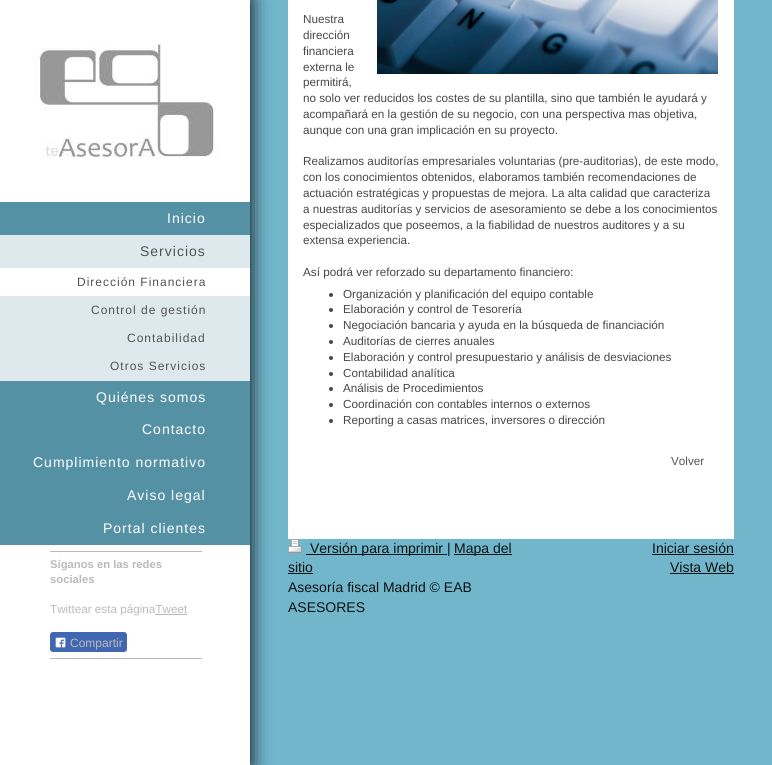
#include <cairo.h>
#include <math.h>
#include <stddef.h>


static void set_color(cairo_t *cr, unsigned color) {
    cairo_set_source_rgb(cr, (color >> 16) / 255.0, (color >> 8 & 255) / 255.0, (color & 255) / 255.0);
}

static void draw_text(cairo_t *cr, double x, double y, const char *s, const char *family, double size, int italic, int bold, unsigned color) {
    cairo_select_font_face(cr, family, italic ? CAIRO_FONT_SLANT_ITALIC : CAIRO_FONT_SLANT_NORMAL,
        bold ? CAIRO_FONT_WEIGHT_BOLD : CAIRO_FONT_WEIGHT_NORMAL);
    cairo_set_font_size(cr, size);
    set_color(cr, color);
    cairo_move_to(cr, x, y);
    cairo_show_text(cr, s);
}

static void draw_spaced(cairo_t *cr, double x, double y, const char *s, double letter, double word) {
    cairo_move_to(cr, x, y);
    while (*s) {
        char ch[5] = {0};
        int n = 0;
        do ch[n++] = *s++; while ((*s & 0xC0) == 0x80);
        cairo_show_text(cr, ch);
        cairo_rel_move_to(cr, letter + word * (*ch == ' '), 0);
    }
}

static void fill_rect(cairo_t *cr, double x, double y, double w, double h, unsigned color) {
    set_color(cr, color);
    cairo_rectangle(cr, x, y, w, h);
    cairo_fill(cr);
}

static void rounded_rect(cairo_t *cr, double x, double y, double w, double h, double r) {
    cairo_new_sub_path(cr);
    cairo_arc(cr, x + w - r, y + h - r, r, 0, M_PI / 2);
    cairo_arc(cr, x + r, y + h - r, r, M_PI / 2, M_PI);
    cairo_arc(cr, x + r, y + r, r, M_PI, 1.5 * M_PI);
    cairo_arc(cr, x + w - r, y + r, r, 1.5 * M_PI, 2 * M_PI);
    cairo_close_path(cr);
}

static void draw_shadow(cairo_t *cr, double x, double y, double w, double h, double r, double blur, double alpha) {
    cairo_push_group_with_content(cr, CAIRO_CONTENT_ALPHA);
    cairo_set_operator(cr, CAIRO_OPERATOR_SOURCE);
    for (int i = 15; i >= -15 && fmin(w, h) + blur * i / 3 > 0; i -= 2) {
        double e = blur * i / 6;
        cairo_set_source_rgba(cr, 0, 0, 0, alpha * erfc((i - 1) / 8.5) / 2);
        rounded_rect(cr, x - e, y - e, w + 2 * e, h + 2 * e, fmax(0, fmin(r + e + blur * .6, fmin(w, h) / 2 + e)));
        cairo_fill(cr);
    }
    cairo_pattern_t *soft = cairo_pop_group(cr);
    cairo_mask(cr, soft);
    cairo_pattern_destroy(soft);
}

static void draw_image(cairo_t *cr, const char *path, double x, double y, double w, double h) {
    cairo_surface_t *image = cairo_image_surface_create_from_png(path);
    cairo_save(cr);
    cairo_set_source_surface(cr, image, x, y);
    cairo_rectangle(cr, x, y, w, h);
    cairo_fill(cr);
    cairo_restore(cr);
    cairo_surface_destroy(image);
}

int main(void) {
    cairo_surface_t *surface = cairo_image_surface_create(CAIRO_FORMAT_RGB24, 772, 765);
    cairo_t *cr = cairo_create(surface);
    cairo_font_options_t *options = cairo_font_options_create();
    cairo_font_options_set_hint_metrics(options, CAIRO_HINT_METRICS_OFF);
    cairo_font_options_set_hint_style(options, CAIRO_HINT_STYLE_NONE);
    cairo_set_font_options(cr, options);
    cairo_set_miter_limit(cr, 4);
    set_color(cr, 0x72B6CC);
    cairo_paint(cr);
    set_color(cr, 0x000000);
    draw_shadow(cr, 0, 0, 250, 765, 0, 10, 1);
    fill_rect(cr, 0, 0, 250, 765, 0xFFFFFF);
    fill_rect(cr, 288, 0, 446, 539, 0xFFFFFF);
    draw_image(cr, "assets/img1.png", 377, 0, 341, 74);
    draw_text(cr, 303, 23, "Nuestra", "Liberation Sans", 11.7, 0, 0, 0x474747);
    draw_text(cr, 303, 39, "dirección", "Liberation Sans", 11.7, 0, 0, 0x474747);
    draw_text(cr, 303, 55, "financiera", "Liberation Sans", 11.7, 0, 0, 0x474747);
    draw_text(cr, 303, 71, "externa le", "Liberation Sans", 11.7, 0, 0, 0x474747);
    draw_text(cr, 303, 86, "permitirá,", "Liberation Sans", 11.7, 0, 0, 0x474747);
    draw_text(cr, 303, 102, "no solo ver reducidos los costes de su plantilla, sino que también le ayudará y", "Liberation Sans", 11.7, 0, 0, 0x474747);
    draw_text(cr, 303, 118, "acompañará en la gestión de su negocio, con una perspectiva mas objetiva,", "Liberation Sans", 11.7, 0, 0, 0x474747);
    draw_text(cr, 303, 134, "aunque con una gran implicación en su proyecto.", "Liberation Sans", 11.7, 0, 0, 0x474747);
    draw_text(cr, 303, 165, "Realizamos auditorías empresariales voluntarias (pre-auditorias), de este modo,", "Liberation Sans", 11.7, 0, 0, 0x474747);
    draw_text(cr, 303, 181, "con los conocimientos obtenidos, elaboramos también recomendaciones de", "Liberation Sans", 11.7, 0, 0, 0x474747);
    draw_text(cr, 303, 197, "actuación estratégicas y propuestas de mejora. La alta calidad que caracteriza", "Liberation Sans", 11.7, 0, 0, 0x474747);
    draw_text(cr, 303, 213, "a nuestras auditorías y servicios de asesoramiento se debe a los conocimientos", "Liberation Sans", 11.7, 0, 0, 0x474747);
    draw_text(cr, 303, 229, "especializados que poseemos, a la fiabilidad de nuestros auditores y a su", "Liberation Sans", 11.7, 0, 0, 0x474747);
    draw_text(cr, 303, 244, "extensa experiencia.", "Liberation Sans", 11.7, 0, 0, 0x474747);
    draw_text(cr, 303, 276, "Así podrá ver reforzado su departamento financiero:", "Liberation Sans", 11.7, 0, 0, 0x474747);
    cairo_new_path(cr);
    cairo_arc(cr, 331, 295, 2, 0, 2 * M_PI);
    cairo_fill(cr);
    draw_text(cr, 343, 298, "Organización y planificación del equipo contable", "Liberation Sans", 11.7, 0, 0, 0x474747);
    cairo_new_path(cr);
    cairo_arc(cr, 331, 310, 2, 0, 2 * M_PI);
    cairo_fill(cr);
    draw_text(cr, 343, 313, "Elaboración y control de Tesorería", "Liberation Sans", 11.7, 0, 0, 0x474747);
    cairo_new_path(cr);
    cairo_arc(cr, 331, 326, 2, 0, 2 * M_PI);
    cairo_fill(cr);
    draw_text(cr, 343, 329, "Negociación bancaria y ayuda en la búsqueda de financiación", "Liberation Sans", 11.7, 0, 0, 0x474747);
    cairo_new_path(cr);
    cairo_arc(cr, 331, 342, 2, 0, 2 * M_PI);
    cairo_fill(cr);
    draw_text(cr, 343, 345, "Auditorías de cierres anuales", "Liberation Sans", 11.7, 0, 0, 0x474747);
    cairo_new_path(cr);
    cairo_arc(cr, 331, 358, 2, 0, 2 * M_PI);
    cairo_fill(cr);
    draw_text(cr, 343, 361, "Elaboración y control presupuestario y análisis de desviaciones", "Liberation Sans", 11.7, 0, 0, 0x474747);
    cairo_new_path(cr);
    cairo_arc(cr, 331, 374, 2, 0, 2 * M_PI);
    cairo_fill(cr);
    draw_text(cr, 343, 377, "Contabilidad analítica", "Liberation Sans", 11.7, 0, 0, 0x474747);
    cairo_new_path(cr);
    cairo_arc(cr, 331, 389, 2, 0, 2 * M_PI);
    cairo_fill(cr);
    draw_text(cr, 343, 392, "Análisis de Procedimientos", "Liberation Sans", 11.7, 0, 0, 0x474747);
    cairo_new_path(cr);
    cairo_arc(cr, 331, 405, 2, 0, 2 * M_PI);
    cairo_fill(cr);
    draw_text(cr, 343, 408, "Coordinación con contables internos o externos", "Liberation Sans", 11.7, 0, 0, 0x474747);
    cairo_new_path(cr);
    cairo_arc(cr, 331, 421, 2, 0, 2 * M_PI);
    cairo_fill(cr);
    draw_text(cr, 343, 424, "Reporting a casas matrices, inversores o dirección", "Liberation Sans", 11.7, 0, 0, 0x474747);
    draw_text(cr, 671, 465, "Volver", "Liberation Sans", 11.7, 0, 0, 0x535353);
    draw_image(cr, "assets/img2.png", 288, 539, 14, 14);
    fill_rect(cr, 306, 554, 141, 1, 0x0B1214);
    draw_text(cr, 310, 553, "Versión para imprimir |", "Liberation Sans", 14, 0, 0, 0x0B1214);
    fill_rect(cr, 454, 554, 58, 1, 0x0B1214);
    draw_text(cr, 454, 553, "Mapa del", "Liberation Sans", 14, 0, 0, 0x0B1214);
    draw_text(cr, 288, 572, "sitio", "Liberation Sans", 14, 0, 0, 0x0B1214);
    fill_rect(cr, 288, 573, 25, 1, 0x0B1214);
    draw_text(cr, 288, 592, "Asesoría fiscal Madrid © EAB", "Liberation Sans", 14, 0, 0, 0x0B1214);
    draw_text(cr, 288, 612, "ASESORES", "Liberation Sans", 14, 0, 0, 0x0B1214);
    draw_text(cr, 652, 553, "Iniciar sesión", "Liberation Sans", 14, 0, 0, 0x0B1214);
    fill_rect(cr, 652, 554, 82, 1, 0x0B1214);
    draw_text(cr, 670, 572, "Vista Web", "Liberation Sans", 14, 0, 0, 0x0B1214);
    fill_rect(cr, 670, 573, 64, 1, 0x0B1214);
    draw_image(cr, "assets/img3.png", 33, 38, 184, 120);
    fill_rect(cr, 0, 202, 250, 343, 0x5591A5);
    set_color(cr, 0xFFFFFF);
    draw_spaced(cr, 167, 223, "Inicio", 1, 0);
    fill_rect(cr, 0, 235, 250, 33, 0xDDE9ED);
    set_color(cr, 0x535353);
    draw_spaced(cr, 140, 256, "Servicios", 1, 0);
    fill_rect(cr, 0, 296, 250, 85, 0xDDE9ED);
    fill_rect(cr, 0, 268, 250, 28, 0xFFFFFF);
    cairo_set_font_size(cr, 12);
    set_color(cr, 0x535353);
    draw_spaced(cr, 77, 286, "Dirección Financiera", 1, 0);
    draw_spaced(cr, 91, 314, "Control de gestión", 1, 0);
    draw_spaced(cr, 127, 342, "Contabilidad", 1, 0);
    draw_spaced(cr, 110, 370, "Otros Servicios", 1, 0);
    cairo_set_font_size(cr, 14);
    set_color(cr, 0xFFFFFF);
    draw_spaced(cr, 96, 402, "Quiénes somos", 1, 0);
    draw_spaced(cr, 142, 434, "Contacto", 1, 0);
    draw_spaced(cr, 33, 467, "Cumplimiento normativo", 1, 0);
    draw_spaced(cr, 127, 500, "Aviso legal", 1, 0);
    draw_spaced(cr, 103, 533, "Portal clientes", 1, 0);
    fill_rect(cr, 50, 551, 152, 1, 0xBABABA);
    draw_text(cr, 50, 568, "Síganos en las redes", "Liberation Sans", 11.25, 0, 1, 0xBABABA);
    draw_text(cr, 50, 583, "sociales", "Liberation Sans", 11.25, 0, 1, 0xBABABA);
    draw_text(cr, 50, 613, "Twittear esta páginaTweet", "Liberation Sans", 11.7, 0, 0, 0xBABABA);
    fill_rect(cr, 155, 614, 32, 1, 0xBABABA);
    set_color(cr, 0x4267B2);
    rounded_rect(cr, 50, 632, 77, 20, 3);
    cairo_fill(cr);
    draw_image(cr, "assets/img4.png", 55, 637, 11, 11);
    draw_text(cr, 70, 647, "Compartir", "Liberation Sans", 12, 0, 0, 0xBABABA);
    fill_rect(cr, 50, 658, 152, 1, 0xBABABA);
    cairo_surface_write_to_png(surface, "output.png");
    cairo_font_options_destroy(options);
    cairo_destroy(cr);
    cairo_surface_destroy(surface);
    return 0;
}
